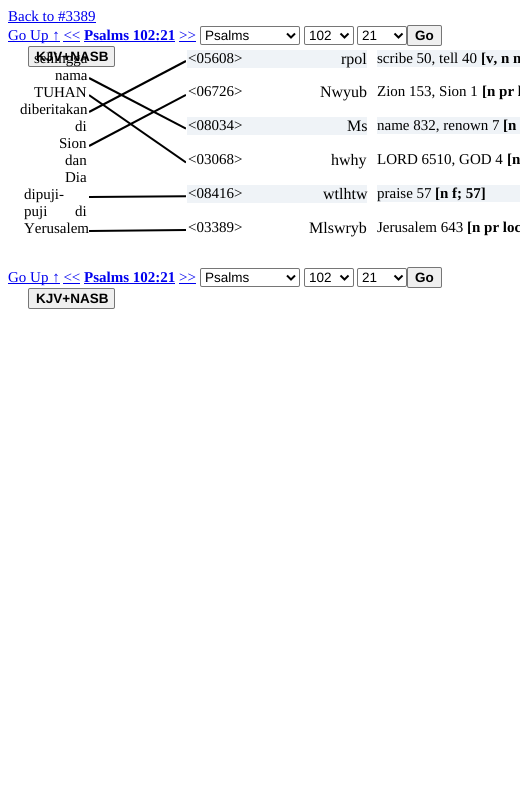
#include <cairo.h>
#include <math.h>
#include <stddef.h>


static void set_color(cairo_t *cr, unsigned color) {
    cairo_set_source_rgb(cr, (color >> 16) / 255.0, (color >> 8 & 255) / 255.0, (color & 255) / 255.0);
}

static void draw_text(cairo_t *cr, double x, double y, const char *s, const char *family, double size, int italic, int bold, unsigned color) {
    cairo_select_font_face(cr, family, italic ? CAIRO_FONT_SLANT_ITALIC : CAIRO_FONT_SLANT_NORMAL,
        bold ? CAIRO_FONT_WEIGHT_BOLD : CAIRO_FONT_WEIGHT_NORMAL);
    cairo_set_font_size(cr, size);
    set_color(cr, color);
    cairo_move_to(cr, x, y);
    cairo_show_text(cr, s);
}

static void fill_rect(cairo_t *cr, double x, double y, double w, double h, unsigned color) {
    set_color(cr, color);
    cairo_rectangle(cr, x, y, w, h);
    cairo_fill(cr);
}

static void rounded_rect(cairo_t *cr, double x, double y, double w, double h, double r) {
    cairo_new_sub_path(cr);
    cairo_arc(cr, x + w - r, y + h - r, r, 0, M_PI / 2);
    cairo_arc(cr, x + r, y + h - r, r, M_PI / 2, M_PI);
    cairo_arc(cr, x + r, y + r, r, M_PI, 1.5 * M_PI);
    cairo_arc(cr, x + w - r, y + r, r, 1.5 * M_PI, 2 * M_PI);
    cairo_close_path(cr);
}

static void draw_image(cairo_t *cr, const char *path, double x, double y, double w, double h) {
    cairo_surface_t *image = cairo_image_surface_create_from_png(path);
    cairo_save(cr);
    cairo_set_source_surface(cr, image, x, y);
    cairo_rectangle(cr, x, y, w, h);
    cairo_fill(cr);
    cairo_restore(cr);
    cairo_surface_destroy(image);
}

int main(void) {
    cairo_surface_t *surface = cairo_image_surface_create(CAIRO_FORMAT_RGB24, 520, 796);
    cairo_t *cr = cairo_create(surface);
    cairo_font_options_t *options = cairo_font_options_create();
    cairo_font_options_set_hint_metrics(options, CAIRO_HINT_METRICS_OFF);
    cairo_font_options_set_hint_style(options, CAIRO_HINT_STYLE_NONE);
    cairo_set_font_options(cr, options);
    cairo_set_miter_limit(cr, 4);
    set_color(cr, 0xFFFFFF);
    cairo_paint(cr);
    draw_text(cr, 8, 21, "Back to #3389", "Liberation Serif", 15, 0, 0, 0x0000EE);
    fill_rect(cr, 8, 22, 88, 1, 0x0000EE);
    fill_rect(cr, 8, 41, 52, 1, 0x0000EE);
    draw_text(cr, 8, 40, "Go Up ↑ <<", "Liberation Serif", 15, 0, 0, 0x0000EE);
    draw_text(cr, 84, 40, "Psalms 102:21", "Liberation Serif", 15, 0, 1, 0x0000EE);
    fill_rect(cr, 84, 41, 91, 1, 0x0000EE);
    draw_text(cr, 179, 40, ">>", "Liberation Serif", 15, 0, 0, 0x0000EE);
    fill_rect(cr, 179, 41, 17, 1, 0x0000EE);
    rounded_rect(cr, 200.5, 26.5, 99, 18, 1.5);
    set_color(cr, 0x767676);
    cairo_set_line_width(cr, 1);
    cairo_stroke(cr);
    cairo_new_path(cr);
    cairo_move_to(cr, 287, 33.5);
    cairo_line_to(cr, 291, 37.5);
    cairo_line_to(cr, 295, 33.5);
    set_color(cr, 0x000000);
    cairo_set_line_width(cr, 2);
    cairo_stroke(cr);
    draw_text(cr, 205, 40, "Psalms", "Liberation Sans", 13.5, 0, 0, 0x000000);
    rounded_rect(cr, 304.5, 26.5, 49, 18, 1.5);
    set_color(cr, 0x767676);
    cairo_set_line_width(cr, 1);
    cairo_stroke(cr);
    cairo_new_path(cr);
    cairo_move_to(cr, 340.5, 33.5);
    cairo_line_to(cr, 344.5, 37.5);
    cairo_line_to(cr, 348.5, 33.5);
    set_color(cr, 0x000000);
    cairo_set_line_width(cr, 2);
    cairo_stroke(cr);
    draw_text(cr, 309, 40, "102", "Liberation Sans", 13.5, 0, 0, 0x000000);
    rounded_rect(cr, 357.5, 26.5, 49, 18, 1.5);
    set_color(cr, 0x767676);
    cairo_set_line_width(cr, 1);
    cairo_stroke(cr);
    cairo_new_path(cr);
    cairo_move_to(cr, 394.5, 33.5);
    cairo_line_to(cr, 398.5, 37.5);
    cairo_line_to(cr, 402.5, 33.5);
    set_color(cr, 0x000000);
    cairo_set_line_width(cr, 2);
    cairo_stroke(cr);
    draw_text(cr, 362, 40, "21", "Liberation Sans", 13.5, 0, 0, 0x000000);
    set_color(cr, 0xEFEFEF);
    rounded_rect(cr, 407.5, 25.5, 34, 20, 1.5);
    cairo_fill_preserve(cr);
    set_color(cr, 0x767676);
    cairo_set_line_width(cr, 1);
    cairo_stroke(cr);
    draw_text(cr, 415, 40, "Go", "Liberation Sans", 13.5, 0, 1, 0x000000);
    fill_rect(cr, 63, 41, 17, 1, 0x0000EE);
    set_color(cr, 0xEFEFEF);
    rounded_rect(cr, 28.5, 46.5, 86, 20, 1.5);
    cairo_fill_preserve(cr);
    set_color(cr, 0x767676);
    cairo_stroke(cr);
    draw_text(cr, 36, 61, "KJV+NASB", "Liberation Sans", 13.5, 0, 1, 0x000000);
    draw_text(cr, 34, 63, "sehingga", "Liberation Serif", 15, 0, 0, 0x000000);
    draw_image(cr, "assets/img1.png", 89, 60, 97, 172);
    fill_rect(cr, 187, 50, 180, 18, 0xEFF3F7);
    draw_text(cr, 188, 63, "<05608>", "Liberation Serif", 15, 0, 0, 0x000000);
    draw_text(cr, 341, 64, "rpol", "Liberation Serif", 16, 0, 0, 0x000000);
    fill_rect(cr, 377, 50, 143, 17, 0xEFF3F7);
    draw_text(cr, 377, 63, "scribe 50, tell 40", "Liberation Serif", 15, 0, 0, 0x000000);
    draw_text(cr, 481, 63, "[v, n m", "Liberation Serif", 15, 0, 1, 0x000000);
    draw_text(cr, 55, 80, "nama", "Liberation Serif", 15, 0, 0, 0x000000);
    draw_text(cr, 34, 97, "TUHAN", "Liberation Serif", 15, 0, 0, 0x000000);
    draw_text(cr, 188, 96, "<06726>", "Liberation Serif", 15, 0, 0, 0x000000);
    draw_text(cr, 320, 97, "Nwyub", "Liberation Serif", 16, 0, 0, 0x000000);
    draw_text(cr, 377, 96, "Zion 153, Sion 1", "Liberation Serif", 15, 0, 0, 0x000000);
    draw_text(cr, 482, 96, "[n pr l", "Liberation Serif", 15, 0, 1, 0x000000);
    draw_text(cr, 20, 114, "diberitakan", "Liberation Serif", 15, 0, 0, 0x000000);
    draw_text(cr, 75, 131, "di", "Liberation Serif", 15, 0, 0, 0x000000);
    fill_rect(cr, 187, 117, 180, 18, 0xEFF3F7);
    draw_text(cr, 188, 130, "<08034>", "Liberation Serif", 15, 0, 0, 0x000000);
    draw_text(cr, 347, 131, "Ms", "Liberation Serif", 16, 0, 0, 0x000000);
    fill_rect(cr, 377, 117, 143, 17, 0xEFF3F7);
    draw_text(cr, 377, 130, "name 832, renown 7", "Liberation Serif", 15, 0, 0, 0x000000);
    draw_text(cr, 503, 130, "[n", "Liberation Serif", 15, 0, 1, 0x000000);
    draw_text(cr, 59, 148, "Sion", "Liberation Serif", 15, 0, 0, 0x000000);
    draw_text(cr, 65, 165, "dan", "Liberation Serif", 15, 0, 0, 0x000000);
    draw_text(cr, 188, 164, "<03068>", "Liberation Serif", 15, 0, 0, 0x000000);
    draw_text(cr, 331, 165, "hwhy", "Liberation Serif", 16, 0, 0, 0x000000);
    draw_text(cr, 377, 164, "LORD 6510, GOD 4", "Liberation Serif", 15, 0, 0, 0x000000);
    draw_text(cr, 507, 164, "[n", "Liberation Serif", 15, 0, 1, 0x000000);
    draw_text(cr, 65, 182, "Dia", "Liberation Serif", 15, 0, 0, 0x000000);
    draw_text(cr, 24, 199, "dipuji-", "Liberation Serif", 15, 0, 0, 0x000000);
    draw_text(cr, 24, 216, "puji", "Liberation Serif", 15, 0, 0, 0x000000);
    draw_text(cr, 75, 216, "di", "Liberation Serif", 15, 0, 0, 0x000000);
    fill_rect(cr, 187, 185, 180, 18, 0xEFF3F7);
    draw_text(cr, 188, 198, "<08416>", "Liberation Serif", 15, 0, 0, 0x000000);
    draw_text(cr, 323, 199, "wtlhtw", "Liberation Serif", 16, 0, 0, 0x000000);
    fill_rect(cr, 377, 185, 143, 17, 0xEFF3F7);
    draw_text(cr, 377, 198, "praise 57", "Liberation Serif", 15, 0, 0, 0x000000);
    draw_text(cr, 435, 198, "[n f; 57]", "Liberation Serif", 15, 0, 1, 0x000000);
    draw_text(cr, 24, 233, "Yerusalem", "Liberation Serif", 15, 0, 0, 0x000000);
    draw_text(cr, 188, 232, "<03389>", "Liberation Serif", 15, 0, 0, 0x000000);
    draw_text(cr, 309, 233, "Mlswryb", "Liberation Serif", 16, 0, 0, 0x000000);
    draw_text(cr, 377, 232, "Jerusalem 643", "Liberation Serif", 15, 0, 0, 0x000000);
    draw_text(cr, 467, 232, "[n pr loc", "Liberation Serif", 15, 0, 1, 0x000000);
    fill_rect(cr, 8, 283, 52, 1, 0x0000EE);
    draw_text(cr, 8, 282, "Go Up ↑ <<", "Liberation Serif", 15, 0, 0, 0x0000EE);
    draw_text(cr, 84, 282, "Psalms 102:21", "Liberation Serif", 15, 0, 1, 0x0000EE);
    fill_rect(cr, 84, 283, 91, 1, 0x0000EE);
    draw_text(cr, 179, 282, ">>", "Liberation Serif", 15, 0, 0, 0x0000EE);
    fill_rect(cr, 179, 283, 17, 1, 0x0000EE);
    rounded_rect(cr, 200.5, 268.5, 99, 18, 1.5);
    set_color(cr, 0x767676);
    cairo_stroke(cr);
    cairo_new_path(cr);
    cairo_move_to(cr, 287, 275.5);
    cairo_line_to(cr, 291, 279.5);
    cairo_line_to(cr, 295, 275.5);
    set_color(cr, 0x000000);
    cairo_set_line_width(cr, 2);
    cairo_stroke(cr);
    draw_text(cr, 205, 282, "Psalms", "Liberation Sans", 13.5, 0, 0, 0x000000);
    rounded_rect(cr, 304.5, 268.5, 49, 18, 1.5);
    set_color(cr, 0x767676);
    cairo_set_line_width(cr, 1);
    cairo_stroke(cr);
    cairo_new_path(cr);
    cairo_move_to(cr, 340.5, 275.5);
    cairo_line_to(cr, 344.5, 279.5);
    cairo_line_to(cr, 348.5, 275.5);
    set_color(cr, 0x000000);
    cairo_set_line_width(cr, 2);
    cairo_stroke(cr);
    draw_text(cr, 309, 282, "102", "Liberation Sans", 13.5, 0, 0, 0x000000);
    rounded_rect(cr, 357.5, 268.5, 49, 18, 1.5);
    set_color(cr, 0x767676);
    cairo_set_line_width(cr, 1);
    cairo_stroke(cr);
    cairo_new_path(cr);
    cairo_move_to(cr, 394.5, 275.5);
    cairo_line_to(cr, 398.5, 279.5);
    cairo_line_to(cr, 402.5, 275.5);
    set_color(cr, 0x000000);
    cairo_set_line_width(cr, 2);
    cairo_stroke(cr);
    draw_text(cr, 362, 282, "21", "Liberation Sans", 13.5, 0, 0, 0x000000);
    set_color(cr, 0xEFEFEF);
    rounded_rect(cr, 407.5, 267.5, 34, 20, 1.5);
    cairo_fill_preserve(cr);
    set_color(cr, 0x767676);
    cairo_set_line_width(cr, 1);
    cairo_stroke(cr);
    draw_text(cr, 415, 282, "Go", "Liberation Sans", 13.5, 0, 1, 0x000000);
    fill_rect(cr, 63, 283, 17, 1, 0x0000EE);
    set_color(cr, 0xEFEFEF);
    rounded_rect(cr, 28.5, 288.5, 86, 20, 1.5);
    cairo_fill_preserve(cr);
    set_color(cr, 0x767676);
    cairo_stroke(cr);
    draw_text(cr, 36, 303, "KJV+NASB", "Liberation Sans", 13.5, 0, 1, 0x000000);
    cairo_surface_write_to_png(surface, "output.png");
    cairo_font_options_destroy(options);
    cairo_destroy(cr);
    cairo_surface_destroy(surface);
    return 0;
}
